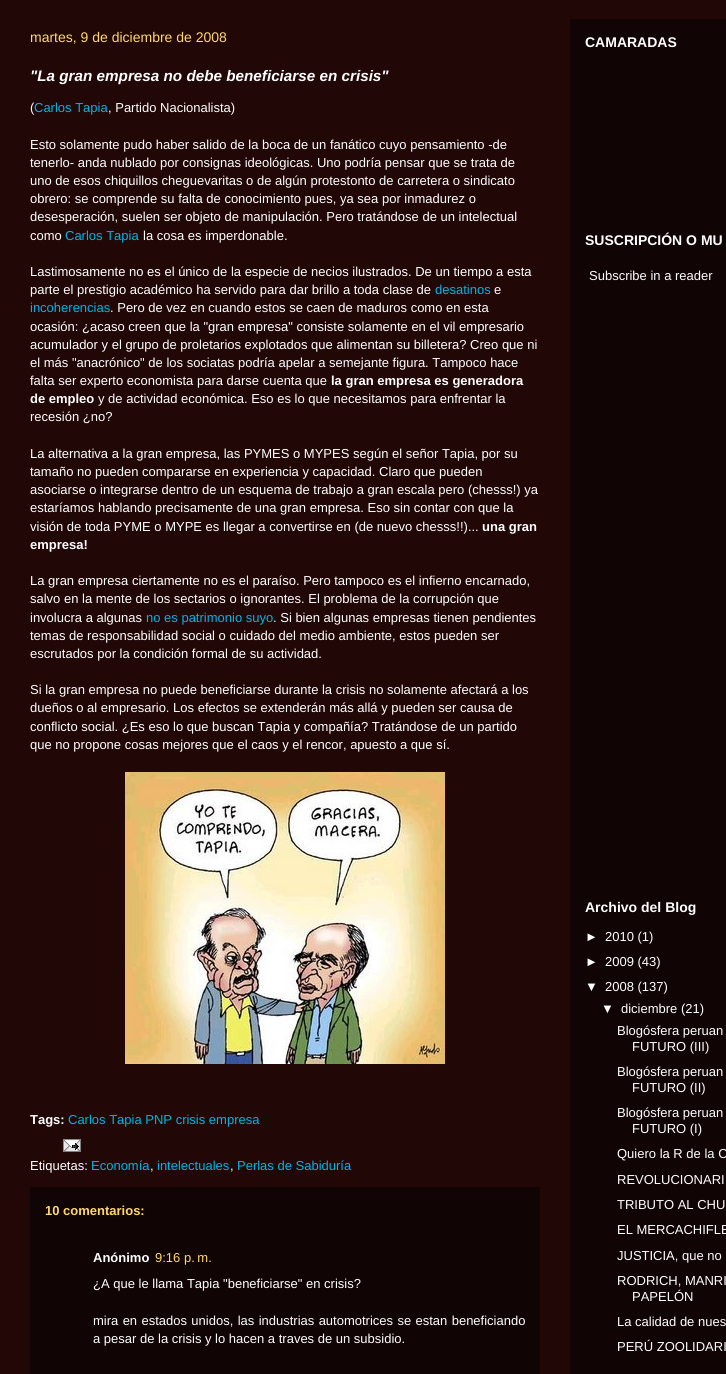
#include <cairo.h>
#include <math.h>
#include <stddef.h>


static void set_color(cairo_t *cr, unsigned color) {
    cairo_set_source_rgb(cr, (color >> 16) / 255.0, (color >> 8 & 255) / 255.0, (color & 255) / 255.0);
}

static void draw_text(cairo_t *cr, double x, double y, const char *s, const char *family, double size, int italic, int bold, unsigned color) {
    cairo_select_font_face(cr, family, italic ? CAIRO_FONT_SLANT_ITALIC : CAIRO_FONT_SLANT_NORMAL,
        bold ? CAIRO_FONT_WEIGHT_BOLD : CAIRO_FONT_WEIGHT_NORMAL);
    cairo_set_font_size(cr, size);
    set_color(cr, color);
    cairo_move_to(cr, x, y);
    cairo_show_text(cr, s);
}

static void draw_spaced(cairo_t *cr, double x, double y, const char *s, double letter, double word) {
    cairo_move_to(cr, x, y);
    while (*s) {
        char ch[5] = {0};
        int n = 0;
        do ch[n++] = *s++; while ((*s & 0xC0) == 0x80);
        cairo_show_text(cr, ch);
        cairo_rel_move_to(cr, letter + word * (*ch == ' '), 0);
    }
}

static void fill_rect(cairo_t *cr, double x, double y, double w, double h, unsigned color) {
    set_color(cr, color);
    cairo_rectangle(cr, x, y, w, h);
    cairo_fill(cr);
}

static void draw_image(cairo_t *cr, const char *path, double x, double y, double w, double h) {
    cairo_surface_t *image = cairo_image_surface_create_from_png(path);
    cairo_save(cr);
    cairo_set_source_surface(cr, image, x, y);
    cairo_rectangle(cr, x, y, w, h);
    cairo_fill(cr);
    cairo_restore(cr);
    cairo_surface_destroy(image);
}

int main(void) {
    cairo_surface_t *surface = cairo_image_surface_create(CAIRO_FORMAT_RGB24, 726, 1374);
    cairo_t *cr = cairo_create(surface);
    cairo_font_options_t *options = cairo_font_options_create();
    cairo_font_options_set_hint_metrics(options, CAIRO_HINT_METRICS_OFF);
    cairo_font_options_set_hint_style(options, CAIRO_HINT_STYLE_NONE);
    cairo_set_font_options(cr, options);
    cairo_set_miter_limit(cr, 4);
    set_color(cr, 0x220707);
    cairo_paint(cr);
    fill_rect(cr, 570, 19, 156, 1355, 0x110404);
    draw_text(cr, 30, 42, "martes, 9 de diciembre de 2008", "Liberation Sans", 14, 0, 0, 0xFFD966);
    draw_text(cr, 30, 81, "\"La gran empresa no debe beneficiarse en crisis\"", "Liberation Sans", 15.25, 1, 1, 0xFFFFFF);
    draw_text(cr, 30, 112, "(", "Liberation Sans", 13, 0, 0, 0xFFFFFF);
    draw_text(cr, 34, 112, "Carlos Tapia", "Liberation Sans", 13, 0, 0, 0x00B4E2);
    draw_text(cr, 108, 112, ", Partido Nacionalista)", "Liberation Sans", 13, 0, 0, 0xFFFFFF);
    draw_text(cr, 30, 149, "Esto solamente pudo haber salido de la boca de un fanático cuyo pensamiento -de", "Liberation Sans", 13, 0, 0, 0xFFFFFF);
    draw_text(cr, 30, 167, "tenerlo- anda nublado por consignas ideológicas. Uno podría pensar que se trata de", "Liberation Sans", 13, 0, 0, 0xFFFFFF);
    draw_text(cr, 30, 185, "uno de esos chiquillos cheguevaritas o de algún protestonto de carretera o sindicato", "Liberation Sans", 13, 0, 0, 0xFFFFFF);
    draw_text(cr, 30, 203, "obrero: se comprende su falta de conocimiento pues, ya sea por inmadurez o", "Liberation Sans", 13, 0, 0, 0xFFFFFF);
    draw_text(cr, 30, 221, "desesperación, suelen ser objeto de manipulación. Pero tratándose de un intelectual", "Liberation Sans", 13, 0, 0, 0xFFFFFF);
    draw_text(cr, 30, 240, "como", "Liberation Sans", 13, 0, 0, 0xFFFFFF);
    draw_text(cr, 65, 240, "Carlos Tapia", "Liberation Sans", 13, 0, 0, 0x00B4E2);
    draw_text(cr, 143, 240, "la cosa es imperdonable.", "Liberation Sans", 13, 0, 0, 0xFFFFFF);
    draw_text(cr, 30, 276, "Lastimosamente no es el único de la especie de necios ilustrados. De un tiempo a esta", "Liberation Sans", 13, 0, 0, 0xFFFFFF);
    draw_text(cr, 30, 294, "parte el prestigio académico ha servido para dar brillo a toda clase de", "Liberation Sans", 13, 0, 0, 0xFFFFFF);
    draw_text(cr, 435, 294, "desatinos", "Liberation Sans", 13, 0, 0, 0x00B4E2);
    draw_text(cr, 494, 294, "e", "Liberation Sans", 13, 0, 0, 0xFFFFFF);
    draw_text(cr, 30, 312, "incoherencias", "Liberation Sans", 13, 0, 0, 0x00B4E2);
    draw_text(cr, 110, 312, ". Pero de vez en cuando estos se caen de maduros como en esta", "Liberation Sans", 13, 0, 0, 0xFFFFFF);
    draw_text(cr, 30, 331, "ocasión: ¿acaso creen que la \"gran empresa\" consiste solamente en el vil empresario", "Liberation Sans", 13, 0, 0, 0xFFFFFF);
    draw_text(cr, 30, 349, "acumulador y el grupo de proletarios explotados que alimentan su billetera? Creo que ni", "Liberation Sans", 13, 0, 0, 0xFFFFFF);
    draw_text(cr, 30, 367, "el más \"anacrónico\" de los sociatas podría apelar a semejante figura. Tampoco hace", "Liberation Sans", 13, 0, 0, 0xFFFFFF);
    draw_text(cr, 30, 385, "falta ser experto economista para darse cuenta que", "Liberation Sans", 13, 0, 0, 0xFFFFFF);
    draw_text(cr, 331, 385, "la gran empresa es generadora", "Liberation Sans", 13, 0, 1, 0xFFFFFF);
    draw_text(cr, 30, 403, "de empleo", "Liberation Sans", 13, 0, 1, 0xFFFFFF);
    draw_text(cr, 98, 403, "y de actividad económica. Eso es lo que necesitamos para enfrentar la", "Liberation Sans", 13, 0, 0, 0xFFFFFF);
    draw_text(cr, 30, 421, "recesión ¿no?", "Liberation Sans", 13, 0, 0, 0xFFFFFF);
    draw_text(cr, 30, 458, "La alternativa a la gran empresa, las PYMES o MYPES según el señor Tapia, por su", "Liberation Sans", 13, 0, 0, 0xFFFFFF);
    draw_text(cr, 30, 476, "tamaño no pueden compararse en experiencia y capacidad. Claro que pueden", "Liberation Sans", 13, 0, 0, 0xFFFFFF);
    draw_text(cr, 30, 494, "asociarse o integrarse dentro de un esquema de trabajo a gran escala pero (chesss!) ya", "Liberation Sans", 13, 0, 0, 0xFFFFFF);
    draw_text(cr, 30, 512, "estaríamos hablando precisamente de una gran empresa. Eso sin contar con que la", "Liberation Sans", 13, 0, 0, 0xFFFFFF);
    draw_text(cr, 30, 531, "visión de toda PYME o MYPE es llegar a convertirse en (de nuevo chesss!!)...", "Liberation Sans", 13, 0, 0, 0xFFFFFF);
    draw_text(cr, 482, 531, "una gran", "Liberation Sans", 13, 0, 1, 0xFFFFFF);
    draw_text(cr, 30, 549, "empresa!", "Liberation Sans", 13, 0, 1, 0xFFFFFF);
    draw_text(cr, 30, 585, "La gran empresa ciertamente no es el paraíso. Pero tampoco es el infierno encarnado,", "Liberation Sans", 13, 0, 0, 0xFFFFFF);
    draw_text(cr, 30, 603, "salvo en la mente de los sectarios o ignorantes. El problema de la corrupción que", "Liberation Sans", 13, 0, 0, 0xFFFFFF);
    draw_text(cr, 30, 622, "involucra a algunas", "Liberation Sans", 13, 0, 0, 0xFFFFFF);
    draw_text(cr, 146, 622, "no es patrimonio suyo", "Liberation Sans", 13, 0, 0, 0x00B4E2);
    draw_text(cr, 273, 622, ". Si bien algunas empresas tienen pendientes", "Liberation Sans", 13, 0, 0, 0xFFFFFF);
    draw_text(cr, 30, 640, "temas de responsabilidad social o cuidado del medio ambiente, estos pueden ser", "Liberation Sans", 13, 0, 0, 0xFFFFFF);
    draw_text(cr, 30, 658, "escrutados por la condición formal de su actividad.", "Liberation Sans", 13, 0, 0, 0xFFFFFF);
    draw_text(cr, 30, 694, "Si la gran empresa no puede beneficiarse durante la crisis no solamente afectará a los", "Liberation Sans", 13, 0, 0, 0xFFFFFF);
    draw_text(cr, 30, 712, "dueños o al empresario. Los efectos se extenderán más allá y pueden ser causa de", "Liberation Sans", 13, 0, 0, 0xFFFFFF);
    draw_text(cr, 30, 731, "conflicto social. ¿Es eso lo que buscan Tapia y compañía? Tratándose de un partido", "Liberation Sans", 13, 0, 0, 0xFFFFFF);
    draw_text(cr, 30, 749, "que no propone cosas mejores que el caos y el rencor, apuesto a que sí.", "Liberation Sans", 13, 0, 0, 0xFFFFFF);
    draw_image(cr, "assets/img1.png", 125, 772, 320, 292);
    draw_text(cr, 30, 1124, "Tags:", "Liberation Sans", 13, 0, 1, 0xFFFFFF);
    draw_text(cr, 68, 1124, "Carlos Tapia PNP crisis empresa", "Liberation Sans", 13, 0, 0, 0x00B4E2);
    draw_image(cr, "assets/img2.png", 63, 1139, 18, 13);
    draw_text(cr, 30, 1170, "Etiquetas:", "Liberation Sans", 13, 0, 0, 0xFFFFFF);
    draw_text(cr, 91, 1170, "Economía", "Liberation Sans", 13, 0, 0, 0x00B4E2);
    draw_text(cr, 150, 1170, ",", "Liberation Sans", 13, 0, 0, 0xFFFFFF);
    draw_text(cr, 157, 1170, "intelectuales", "Liberation Sans", 13, 0, 0, 0x00B4E2);
    draw_text(cr, 230, 1170, ",", "Liberation Sans", 13, 0, 0, 0xFFFFFF);
    draw_text(cr, 237, 1170, "Perlas de Sabiduría", "Liberation Sans", 13, 0, 0, 0x00B4E2);
    fill_rect(cr, 30, 1187, 510, 187, 0x110404);
    draw_text(cr, 45, 1215, "10 comentarios:", "Liberation Sans", 13, 0, 1, 0xFFD966);
    draw_text(cr, 93, 1262, "Anónimo", "Liberation Sans", 13, 0, 1, 0xFFFFFF);
    draw_text(cr, 155, 1262, "9:16 p. m.", "Liberation Sans", 13, 0, 0, 0xFFD966);
    draw_text(cr, 93, 1288, "¿A que le llama Tapia \"beneficiarse\" en crisis?", "Liberation Sans", 13, 0, 0, 0xFFFFFF);
    draw_spaced(cr, 93, 1325, "mira en estados unidos, las industrias automotrices se estan beneficiando", 0, 0.75);
    draw_text(cr, 93, 1343, "a pesar de la crisis y lo hacen a traves de un subsidio.", "Liberation Sans", 13, 0, 0, 0xFFFFFF);
    draw_text(cr, 585, 47, "CAMARADAS", "Liberation Sans", 14, 0, 1, 0xFFFFFF);
    draw_text(cr, 585, 245, "SUSCRIPCIÓN O MU", "Liberation Sans", 14, 0, 1, 0xFFFFFF);
    draw_text(cr, 589, 280, "Subscribe in a reader", "Liberation Sans", 13, 0, 0, 0xFFFFFF);
    draw_text(cr, 585, 912, "Archivo del Blog", "Liberation Sans", 14, 0, 1, 0xFFFFFF);
    draw_text(cr, 585, 941, "►", "Liberation Sans", 13, 0, 0, 0xFFFFFF);
    draw_text(cr, 605, 941, "2010 (1)", "Liberation Sans", 13, 0, 0, 0xFFFFFF);
    draw_text(cr, 585, 966, "►", "Liberation Sans", 13, 0, 0, 0xFFFFFF);
    draw_text(cr, 605, 966, "2009 (43)", "Liberation Sans", 13, 0, 0, 0xFFFFFF);
    draw_text(cr, 585, 991, "▼", "Liberation Sans", 13, 0, 0, 0xFFFFFF);
    draw_text(cr, 605, 991, "2008 (137)", "Liberation Sans", 13, 0, 0, 0xFFFFFF);
    draw_text(cr, 601, 1013, "▼", "Liberation Sans", 13, 0, 0, 0xFFFFFF);
    draw_text(cr, 621, 1013, "diciembre (21)", "Liberation Sans", 13, 0, 0, 0xFFFFFF);
    draw_text(cr, 617, 1035, "Blogósfera peruan", "Liberation Sans", 13, 0, 0, 0xFFFFFF);
    draw_text(cr, 632, 1051, "FUTURO (III)", "Liberation Sans", 13, 0, 0, 0xFFFFFF);
    draw_text(cr, 617, 1076, "Blogósfera peruan", "Liberation Sans", 13, 0, 0, 0xFFFFFF);
    draw_text(cr, 632, 1092, "FUTURO (II)", "Liberation Sans", 13, 0, 0, 0xFFFFFF);
    draw_text(cr, 617, 1117, "Blogósfera peruan", "Liberation Sans", 13, 0, 0, 0xFFFFFF);
    draw_text(cr, 632, 1133, "FUTURO (I)", "Liberation Sans", 13, 0, 0, 0xFFFFFF);
    draw_text(cr, 617, 1158, "Quiero la R de la C", "Liberation Sans", 13, 0, 0, 0xFFFFFF);
    draw_text(cr, 617, 1184, "REVOLUCIONARI", "Liberation Sans", 13, 0, 0, 0xFFFFFF);
    draw_text(cr, 617, 1209, "TRIBUTO AL CHU", "Liberation Sans", 13, 0, 0, 0xFFFFFF);
    draw_text(cr, 617, 1234, "EL MERCACHIFLE", "Liberation Sans", 13, 0, 0, 0xFFFFFF);
    draw_text(cr, 617, 1260, "JUSTICIA, que no", "Liberation Sans", 13, 0, 0, 0xFFFFFF);
    draw_text(cr, 617, 1285, "RODRICH, MANRI", "Liberation Sans", 13, 0, 0, 0xFFFFFF);
    draw_text(cr, 632, 1301, "PAPELÓN", "Liberation Sans", 13, 0, 0, 0xFFFFFF);
    draw_text(cr, 617, 1326, "La calidad de nues", "Liberation Sans", 13, 0, 0, 0xFFFFFF);
    draw_text(cr, 617, 1351, "PERÚ ZOOLIDARI", "Liberation Sans", 13, 0, 0, 0xFFFFFF);
    cairo_surface_write_to_png(surface, "output.png");
    cairo_font_options_destroy(options);
    cairo_destroy(cr);
    cairo_surface_destroy(surface);
    return 0;
}
